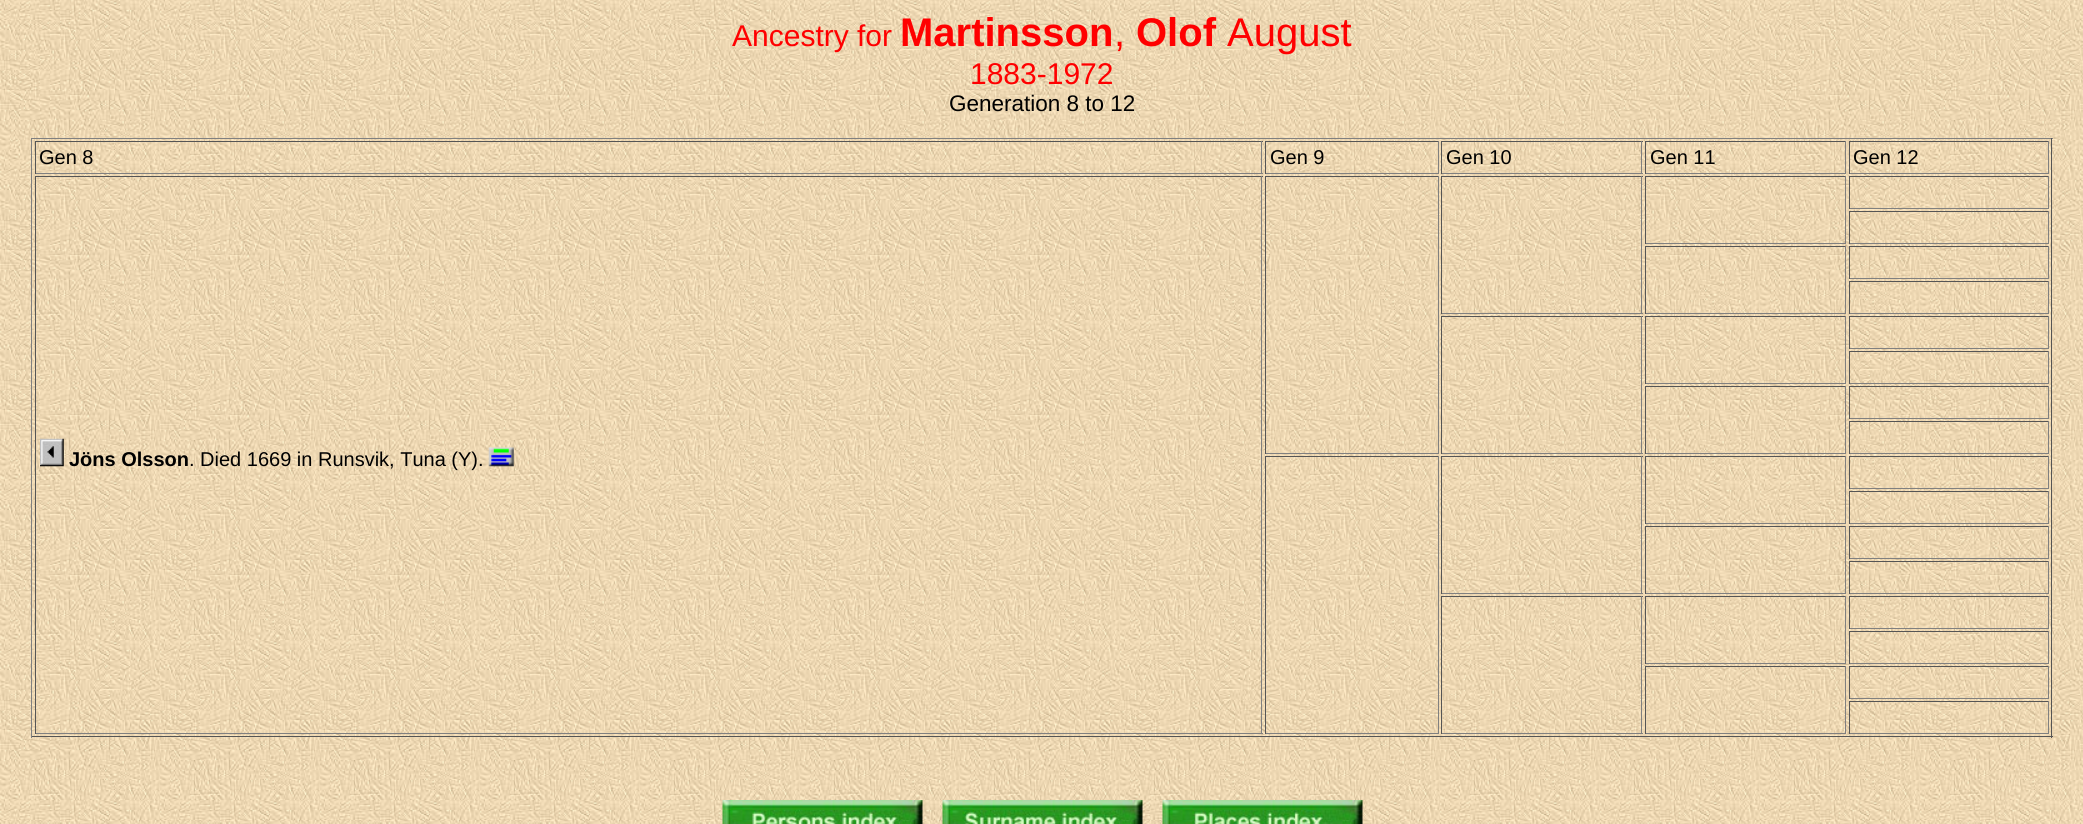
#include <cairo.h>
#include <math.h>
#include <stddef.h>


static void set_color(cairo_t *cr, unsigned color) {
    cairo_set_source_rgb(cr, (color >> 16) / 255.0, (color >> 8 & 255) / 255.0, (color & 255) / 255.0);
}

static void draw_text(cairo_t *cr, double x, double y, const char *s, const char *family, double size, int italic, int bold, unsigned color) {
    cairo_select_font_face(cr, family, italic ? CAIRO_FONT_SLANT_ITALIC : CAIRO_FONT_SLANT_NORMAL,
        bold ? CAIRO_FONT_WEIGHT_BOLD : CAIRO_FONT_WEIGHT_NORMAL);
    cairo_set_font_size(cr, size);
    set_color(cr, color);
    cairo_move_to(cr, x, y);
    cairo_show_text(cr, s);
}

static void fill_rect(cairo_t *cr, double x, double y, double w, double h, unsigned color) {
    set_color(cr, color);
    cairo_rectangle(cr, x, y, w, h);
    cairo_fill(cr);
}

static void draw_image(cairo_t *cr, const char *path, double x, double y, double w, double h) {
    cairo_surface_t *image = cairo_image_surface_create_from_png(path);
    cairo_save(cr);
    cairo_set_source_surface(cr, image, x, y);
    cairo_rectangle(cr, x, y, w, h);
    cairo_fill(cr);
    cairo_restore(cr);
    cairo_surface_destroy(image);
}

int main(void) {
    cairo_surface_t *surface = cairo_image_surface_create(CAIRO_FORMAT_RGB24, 2083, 824);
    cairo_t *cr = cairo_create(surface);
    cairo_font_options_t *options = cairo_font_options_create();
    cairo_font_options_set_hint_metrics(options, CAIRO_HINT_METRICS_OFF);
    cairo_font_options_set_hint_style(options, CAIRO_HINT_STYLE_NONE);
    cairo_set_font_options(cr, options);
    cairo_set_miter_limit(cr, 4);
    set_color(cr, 0xFFFFFF);
    cairo_paint(cr);
    draw_image(cr, "assets/img1.png", 0, 0, 2083, 824);
    draw_text(cr, 732, 46, "Ancestry for", "Liberation Sans", 30, 0, 0, 0xFF0000);
    draw_text(cr, 900, 46, "Martinsson", "Liberation Sans", 40, 0, 1, 0xFF0000);
    draw_text(cr, 1114, 46, ",", "Liberation Sans", 40, 0, 0, 0xFF0000);
    draw_text(cr, 1136, 46, "Olof", "Liberation Sans", 40, 0, 1, 0xFF0000);
    draw_text(cr, 1227, 46, "August", "Liberation Sans", 40, 0, 0, 0xFF0000);
    draw_text(cr, 970, 84, "1883-1972", "Liberation Sans", 30, 0, 0, 0xFF0000);
    draw_text(cr, 949, 111, "Generation 8 to 12", "Liberation Sans", 22.5, 0, 0, 0x000000);
    fill_rect(cr, 31, 138, 2022, 1, 0x808080);
    fill_rect(cr, 2051, 138, 1, 600, 0x555555);
    fill_rect(cr, 31, 736, 2022, 1, 0x555555);
    fill_rect(cr, 31, 138, 1, 600, 0x808080);
    fill_rect(cr, 35, 141, 1228, 1, 0x555555);
    fill_rect(cr, 1261, 141, 1, 33, 0x808080);
    fill_rect(cr, 35, 173, 1228, 1, 0x808080);
    fill_rect(cr, 35, 141, 1, 33, 0x555555);
    draw_text(cr, 39, 164, "Gen 8", "Liberation Sans", 20, 0, 0, 0x000000);
    fill_rect(cr, 1265, 141, 174, 1, 0x555555);
    fill_rect(cr, 1438, 141, 1, 33, 0x808080);
    fill_rect(cr, 1265, 173, 174, 1, 0x808080);
    fill_rect(cr, 1265, 141, 1, 33, 0x555555);
    draw_text(cr, 1270, 164, "Gen 9", "Liberation Sans", 20, 0, 0, 0x000000);
    fill_rect(cr, 1441, 141, 202, 1, 0x555555);
    fill_rect(cr, 1641, 141, 1, 33, 0x808080);
    fill_rect(cr, 1441, 173, 202, 1, 0x808080);
    fill_rect(cr, 1441, 141, 1, 33, 0x555555);
    draw_text(cr, 1446, 164, "Gen 10", "Liberation Sans", 20, 0, 0, 0x000000);
    fill_rect(cr, 1645, 141, 201, 1, 0x555555);
    fill_rect(cr, 1845, 141, 1, 33, 0x808080);
    fill_rect(cr, 1645, 173, 201, 1, 0x808080);
    fill_rect(cr, 1645, 141, 1, 33, 0x555555);
    draw_text(cr, 1650, 164, "Gen 11", "Liberation Sans", 20, 0, 0, 0x000000);
    fill_rect(cr, 1849, 141, 200, 1, 0x555555);
    fill_rect(cr, 2048, 141, 1, 33, 0x808080);
    fill_rect(cr, 1849, 173, 200, 1, 0x808080);
    fill_rect(cr, 1849, 141, 1, 33, 0x555555);
    draw_text(cr, 1853, 164, "Gen 12", "Liberation Sans", 20, 0, 0, 0x000000);
    fill_rect(cr, 1849, 211, 200, 1, 0x555555);
    fill_rect(cr, 2048, 211, 1, 33, 0x808080);
    fill_rect(cr, 1849, 243, 200, 1, 0x808080);
    fill_rect(cr, 1849, 211, 1, 33, 0x555555);
    fill_rect(cr, 1645, 246, 201, 1, 0x555555);
    fill_rect(cr, 1845, 246, 1, 68, 0x808080);
    fill_rect(cr, 1645, 313, 201, 1, 0x808080);
    fill_rect(cr, 1645, 246, 1, 68, 0x555555);
    fill_rect(cr, 1849, 246, 200, 1, 0x555555);
    fill_rect(cr, 2048, 246, 1, 33, 0x808080);
    fill_rect(cr, 1849, 278, 200, 1, 0x808080);
    fill_rect(cr, 1849, 246, 1, 33, 0x555555);
    fill_rect(cr, 1849, 281, 200, 1, 0x555555);
    fill_rect(cr, 2048, 281, 1, 33, 0x808080);
    fill_rect(cr, 1849, 313, 200, 1, 0x808080);
    fill_rect(cr, 1849, 281, 1, 33, 0x555555);
    fill_rect(cr, 1441, 316, 202, 1, 0x555555);
    fill_rect(cr, 1641, 316, 1, 138, 0x808080);
    fill_rect(cr, 1441, 453, 202, 1, 0x808080);
    fill_rect(cr, 1441, 316, 1, 138, 0x555555);
    fill_rect(cr, 1645, 316, 201, 1, 0x555555);
    fill_rect(cr, 1845, 316, 1, 68, 0x808080);
    fill_rect(cr, 1645, 383, 201, 1, 0x808080);
    fill_rect(cr, 1645, 316, 1, 68, 0x555555);
    fill_rect(cr, 1849, 316, 200, 1, 0x555555);
    fill_rect(cr, 2048, 316, 1, 33, 0x808080);
    fill_rect(cr, 1849, 348, 200, 1, 0x808080);
    fill_rect(cr, 1849, 316, 1, 33, 0x555555);
    fill_rect(cr, 1849, 351, 200, 1, 0x555555);
    fill_rect(cr, 2048, 351, 1, 33, 0x808080);
    fill_rect(cr, 1849, 383, 200, 1, 0x808080);
    fill_rect(cr, 1849, 351, 1, 33, 0x555555);
    fill_rect(cr, 1645, 386, 201, 1, 0x555555);
    fill_rect(cr, 1845, 386, 1, 68, 0x808080);
    fill_rect(cr, 1645, 453, 201, 1, 0x808080);
    fill_rect(cr, 1645, 386, 1, 68, 0x555555);
    fill_rect(cr, 1849, 386, 200, 1, 0x555555);
    fill_rect(cr, 2048, 386, 1, 33, 0x808080);
    fill_rect(cr, 1849, 418, 200, 1, 0x808080);
    fill_rect(cr, 1849, 386, 1, 33, 0x555555);
    fill_rect(cr, 1849, 421, 200, 1, 0x555555);
    fill_rect(cr, 2048, 421, 1, 33, 0x808080);
    fill_rect(cr, 1849, 453, 200, 1, 0x808080);
    fill_rect(cr, 1849, 421, 1, 33, 0x555555);
    fill_rect(cr, 1265, 176, 174, 1, 0x555555);
    fill_rect(cr, 1438, 176, 1, 278, 0x808080);
    fill_rect(cr, 1265, 453, 174, 1, 0x808080);
    fill_rect(cr, 1265, 176, 1, 278, 0x555555);
    fill_rect(cr, 1441, 176, 202, 1, 0x555555);
    fill_rect(cr, 1641, 176, 1, 138, 0x808080);
    fill_rect(cr, 1441, 313, 202, 1, 0x808080);
    fill_rect(cr, 1441, 176, 1, 138, 0x555555);
    fill_rect(cr, 1645, 176, 201, 1, 0x555555);
    fill_rect(cr, 1845, 176, 1, 68, 0x808080);
    fill_rect(cr, 1645, 243, 201, 1, 0x808080);
    fill_rect(cr, 1645, 176, 1, 68, 0x555555);
    fill_rect(cr, 1849, 176, 200, 1, 0x555555);
    fill_rect(cr, 2048, 176, 1, 33, 0x808080);
    fill_rect(cr, 1849, 208, 200, 1, 0x808080);
    fill_rect(cr, 1849, 176, 1, 33, 0x555555);
    fill_rect(cr, 35, 176, 1228, 1, 0x555555);
    fill_rect(cr, 1261, 176, 1, 558, 0x808080);
    fill_rect(cr, 35, 733, 1228, 1, 0x808080);
    fill_rect(cr, 35, 176, 1, 558, 0x555555);
    draw_image(cr, "assets/img2.png", 40, 438, 24, 29);
    draw_text(cr, 69, 466, "Jöns Olsson", "Liberation Sans", 20, 0, 1, 0x000000);
    draw_text(cr, 189, 466, ". Died 1669 in Runsvik, Tuna (Y).", "Liberation Sans", 20, 0, 0, 0x000000);
    draw_image(cr, "assets/img3.png", 488, 447, 26, 20);
    fill_rect(cr, 1265, 456, 174, 1, 0x555555);
    fill_rect(cr, 1438, 456, 1, 278, 0x808080);
    fill_rect(cr, 1265, 733, 174, 1, 0x808080);
    fill_rect(cr, 1265, 456, 1, 278, 0x555555);
    fill_rect(cr, 1441, 456, 202, 1, 0x555555);
    fill_rect(cr, 1641, 456, 1, 138, 0x808080);
    fill_rect(cr, 1441, 593, 202, 1, 0x808080);
    fill_rect(cr, 1441, 456, 1, 138, 0x555555);
    fill_rect(cr, 1645, 456, 201, 1, 0x555555);
    fill_rect(cr, 1845, 456, 1, 68, 0x808080);
    fill_rect(cr, 1645, 523, 201, 1, 0x808080);
    fill_rect(cr, 1645, 456, 1, 68, 0x555555);
    fill_rect(cr, 1849, 456, 200, 1, 0x555555);
    fill_rect(cr, 2048, 456, 1, 33, 0x808080);
    fill_rect(cr, 1849, 488, 200, 1, 0x808080);
    fill_rect(cr, 1849, 456, 1, 33, 0x555555);
    fill_rect(cr, 1849, 491, 200, 1, 0x555555);
    fill_rect(cr, 2048, 491, 1, 33, 0x808080);
    fill_rect(cr, 1849, 523, 200, 1, 0x808080);
    fill_rect(cr, 1849, 491, 1, 33, 0x555555);
    fill_rect(cr, 1645, 526, 201, 1, 0x555555);
    fill_rect(cr, 1845, 526, 1, 68, 0x808080);
    fill_rect(cr, 1645, 593, 201, 1, 0x808080);
    fill_rect(cr, 1645, 526, 1, 68, 0x555555);
    fill_rect(cr, 1849, 526, 200, 1, 0x555555);
    fill_rect(cr, 2048, 526, 1, 33, 0x808080);
    fill_rect(cr, 1849, 558, 200, 1, 0x808080);
    fill_rect(cr, 1849, 526, 1, 33, 0x555555);
    fill_rect(cr, 1849, 561, 200, 1, 0x555555);
    fill_rect(cr, 2048, 561, 1, 33, 0x808080);
    fill_rect(cr, 1849, 593, 200, 1, 0x808080);
    fill_rect(cr, 1849, 561, 1, 33, 0x555555);
    fill_rect(cr, 1441, 596, 202, 1, 0x555555);
    fill_rect(cr, 1641, 596, 1, 138, 0x808080);
    fill_rect(cr, 1441, 733, 202, 1, 0x808080);
    fill_rect(cr, 1441, 596, 1, 138, 0x555555);
    fill_rect(cr, 1645, 596, 201, 1, 0x555555);
    fill_rect(cr, 1845, 596, 1, 68, 0x808080);
    fill_rect(cr, 1645, 663, 201, 1, 0x808080);
    fill_rect(cr, 1645, 596, 1, 68, 0x555555);
    fill_rect(cr, 1849, 596, 200, 1, 0x555555);
    fill_rect(cr, 2048, 596, 1, 33, 0x808080);
    fill_rect(cr, 1849, 628, 200, 1, 0x808080);
    fill_rect(cr, 1849, 596, 1, 33, 0x555555);
    fill_rect(cr, 1849, 631, 200, 1, 0x555555);
    fill_rect(cr, 2048, 631, 1, 33, 0x808080);
    fill_rect(cr, 1849, 663, 200, 1, 0x808080);
    fill_rect(cr, 1849, 631, 1, 33, 0x555555);
    fill_rect(cr, 1645, 666, 201, 1, 0x555555);
    fill_rect(cr, 1845, 666, 1, 68, 0x808080);
    fill_rect(cr, 1645, 733, 201, 1, 0x808080);
    fill_rect(cr, 1645, 666, 1, 68, 0x555555);
    fill_rect(cr, 1849, 666, 200, 1, 0x555555);
    fill_rect(cr, 2048, 666, 1, 33, 0x808080);
    fill_rect(cr, 1849, 698, 200, 1, 0x808080);
    fill_rect(cr, 1849, 666, 1, 33, 0x555555);
    fill_rect(cr, 1849, 701, 200, 1, 0x555555);
    fill_rect(cr, 2048, 701, 1, 33, 0x808080);
    fill_rect(cr, 1849, 733, 200, 1, 0x808080);
    fill_rect(cr, 1849, 701, 1, 33, 0x555555);
    draw_image(cr, "assets/img4.png", 722, 800, 201, 24);
    draw_image(cr, "assets/img5.png", 942, 800, 201, 24);
    draw_image(cr, "assets/img6.png", 1162, 800, 201, 24);
    cairo_surface_write_to_png(surface, "output.png");
    cairo_font_options_destroy(options);
    cairo_destroy(cr);
    cairo_surface_destroy(surface);
    return 0;
}
